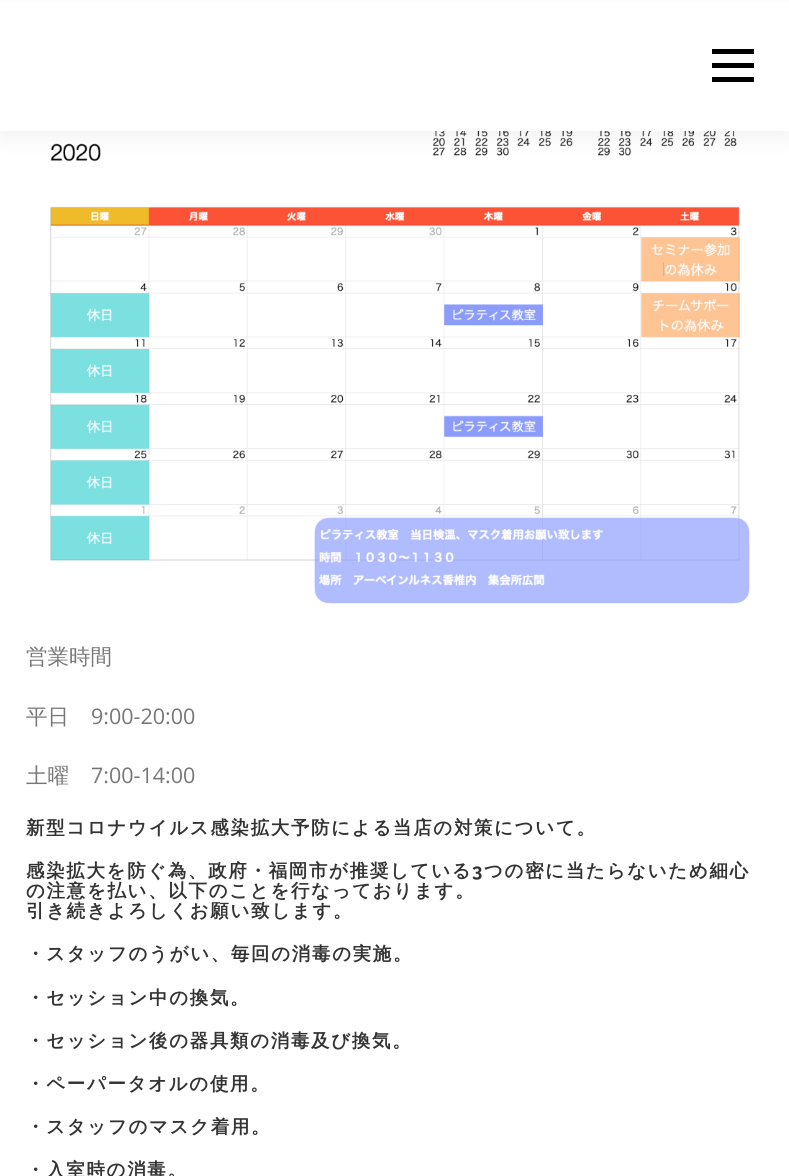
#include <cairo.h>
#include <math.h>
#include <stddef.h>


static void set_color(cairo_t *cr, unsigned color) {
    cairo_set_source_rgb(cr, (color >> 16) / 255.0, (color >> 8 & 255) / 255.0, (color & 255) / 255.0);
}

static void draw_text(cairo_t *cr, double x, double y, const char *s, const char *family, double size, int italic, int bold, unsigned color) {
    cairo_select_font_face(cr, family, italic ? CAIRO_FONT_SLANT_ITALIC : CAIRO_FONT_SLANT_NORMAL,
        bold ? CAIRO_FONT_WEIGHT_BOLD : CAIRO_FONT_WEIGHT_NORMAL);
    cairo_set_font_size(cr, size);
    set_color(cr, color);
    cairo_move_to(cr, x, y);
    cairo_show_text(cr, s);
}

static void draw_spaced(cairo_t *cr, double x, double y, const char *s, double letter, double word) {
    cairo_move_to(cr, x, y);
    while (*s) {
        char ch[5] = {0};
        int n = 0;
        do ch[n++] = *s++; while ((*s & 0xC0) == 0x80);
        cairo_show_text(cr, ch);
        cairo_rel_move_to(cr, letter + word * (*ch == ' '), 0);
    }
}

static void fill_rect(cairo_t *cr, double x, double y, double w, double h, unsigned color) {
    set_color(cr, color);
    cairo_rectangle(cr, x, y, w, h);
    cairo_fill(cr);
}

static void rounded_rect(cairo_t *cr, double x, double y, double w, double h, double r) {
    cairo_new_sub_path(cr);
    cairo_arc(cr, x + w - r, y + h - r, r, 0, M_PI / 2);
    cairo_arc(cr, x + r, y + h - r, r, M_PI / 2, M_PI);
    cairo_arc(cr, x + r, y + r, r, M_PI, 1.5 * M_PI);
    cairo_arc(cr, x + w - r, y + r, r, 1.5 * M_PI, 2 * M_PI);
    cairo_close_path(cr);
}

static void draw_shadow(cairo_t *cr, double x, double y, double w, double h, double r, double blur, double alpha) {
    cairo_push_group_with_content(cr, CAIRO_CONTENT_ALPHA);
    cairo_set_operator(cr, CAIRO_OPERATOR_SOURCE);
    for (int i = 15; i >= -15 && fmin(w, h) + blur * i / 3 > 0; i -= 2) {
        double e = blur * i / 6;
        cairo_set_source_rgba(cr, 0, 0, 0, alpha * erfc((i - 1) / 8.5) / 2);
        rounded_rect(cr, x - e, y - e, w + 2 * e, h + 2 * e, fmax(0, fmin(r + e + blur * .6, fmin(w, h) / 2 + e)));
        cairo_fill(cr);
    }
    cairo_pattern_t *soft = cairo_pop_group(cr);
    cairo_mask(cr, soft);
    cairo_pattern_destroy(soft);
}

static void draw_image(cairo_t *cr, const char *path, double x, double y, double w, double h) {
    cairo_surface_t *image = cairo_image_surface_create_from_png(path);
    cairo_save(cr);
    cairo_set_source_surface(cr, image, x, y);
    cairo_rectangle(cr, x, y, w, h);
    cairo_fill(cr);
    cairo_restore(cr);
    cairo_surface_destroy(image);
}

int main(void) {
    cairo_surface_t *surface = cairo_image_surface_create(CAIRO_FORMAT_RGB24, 789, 1176);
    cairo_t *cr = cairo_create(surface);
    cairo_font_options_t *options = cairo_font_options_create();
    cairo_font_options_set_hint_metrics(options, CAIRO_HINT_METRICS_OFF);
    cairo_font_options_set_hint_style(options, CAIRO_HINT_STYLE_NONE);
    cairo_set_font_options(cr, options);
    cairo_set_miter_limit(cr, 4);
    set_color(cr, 0xFFFFFF);
    cairo_paint(cr);
    draw_image(cr, "assets/img1.png", 50, 131, 700, 473);
    set_color(cr, 0x323232);
    draw_shadow(cr, 0, 9, 789, 131, 0, 9, 0.06);
    fill_rect(cr, 0, 2, 789, 129, 0xFFFFFF);
    fill_rect(cr, 712, 63, 42, 5, 0x000000);
    fill_rect(cr, 712, 49, 42, 5, 0x000000);
    fill_rect(cr, 712, 77, 42, 5, 0x000000);
    draw_text(cr, 26, 664, "営業時間", "WenQuanYi Zen Hei Medium", 21.5, 0, 0, 0x777777);
    draw_text(cr, 26, 724, "平日", "WenQuanYi Zen Hei Medium", 21.5, 0, 0, 0x777777);
    draw_text(cr, 91, 724, "9:00-20:00", "Open Sans", 21.5, 0, 0, 0x777777);
    draw_text(cr, 26, 783, "土曜", "WenQuanYi Zen Hei Medium", 21.5, 0, 0, 0x777777);
    draw_text(cr, 91, 783, "7:00-14:00", "Open Sans", 21.5, 0, 0, 0x777777);
    cairo_select_font_face(cr, "WenQuanYi Zen Hei", CAIRO_FONT_SLANT_NORMAL, CAIRO_FONT_WEIGHT_BOLD);
    cairo_set_font_size(cr, 18.4);
    set_color(cr, 0x333333);
    draw_spaced(cr, 26, 834, "新型コロナウイルス感染拡大予防による当店の対策について。", 1.75, 0);
    draw_spaced(cr, 26, 877, "感染拡大を防ぐ為、政府・福岡市が推奨している", 1.75, 0);
    cairo_select_font_face(cr, "Raleway", CAIRO_FONT_SLANT_NORMAL, CAIRO_FONT_WEIGHT_BOLD);
    draw_spaced(cr, 472, 877, "3", 1.75, 0);
    cairo_select_font_face(cr, "WenQuanYi Zen Hei", CAIRO_FONT_SLANT_NORMAL, CAIRO_FONT_WEIGHT_BOLD);
    draw_spaced(cr, 484, 877, "つの密に当たらないため細心", 1.75, 0);
    draw_spaced(cr, 26, 897, "の注意を払い、以下のことを行なっております。", 1.75, 0);
    draw_spaced(cr, 26, 917, "引き続きよろしくお願い致します。", 1.75, 0);
    draw_spaced(cr, 26, 960, "・スタッフのうがい、毎回の消毒の実施。", 1.75, 0);
    draw_spaced(cr, 26, 1004, "・セッション中の換気。", 1.75, 0);
    draw_spaced(cr, 26, 1047, "・セッション後の器具類の消毒及び換気。", 1.75, 0);
    draw_spaced(cr, 26, 1090, "・ペーパータオルの使用。", 1.75, 0);
    draw_spaced(cr, 26, 1133, "・スタッフのマスク着用。", 1.75, 0);
    draw_spaced(cr, 26, 1176, "・入室時の消毒。", 1.75, 0);
    cairo_surface_write_to_png(surface, "output.png");
    cairo_font_options_destroy(options);
    cairo_destroy(cr);
    cairo_surface_destroy(surface);
    return 0;
}
